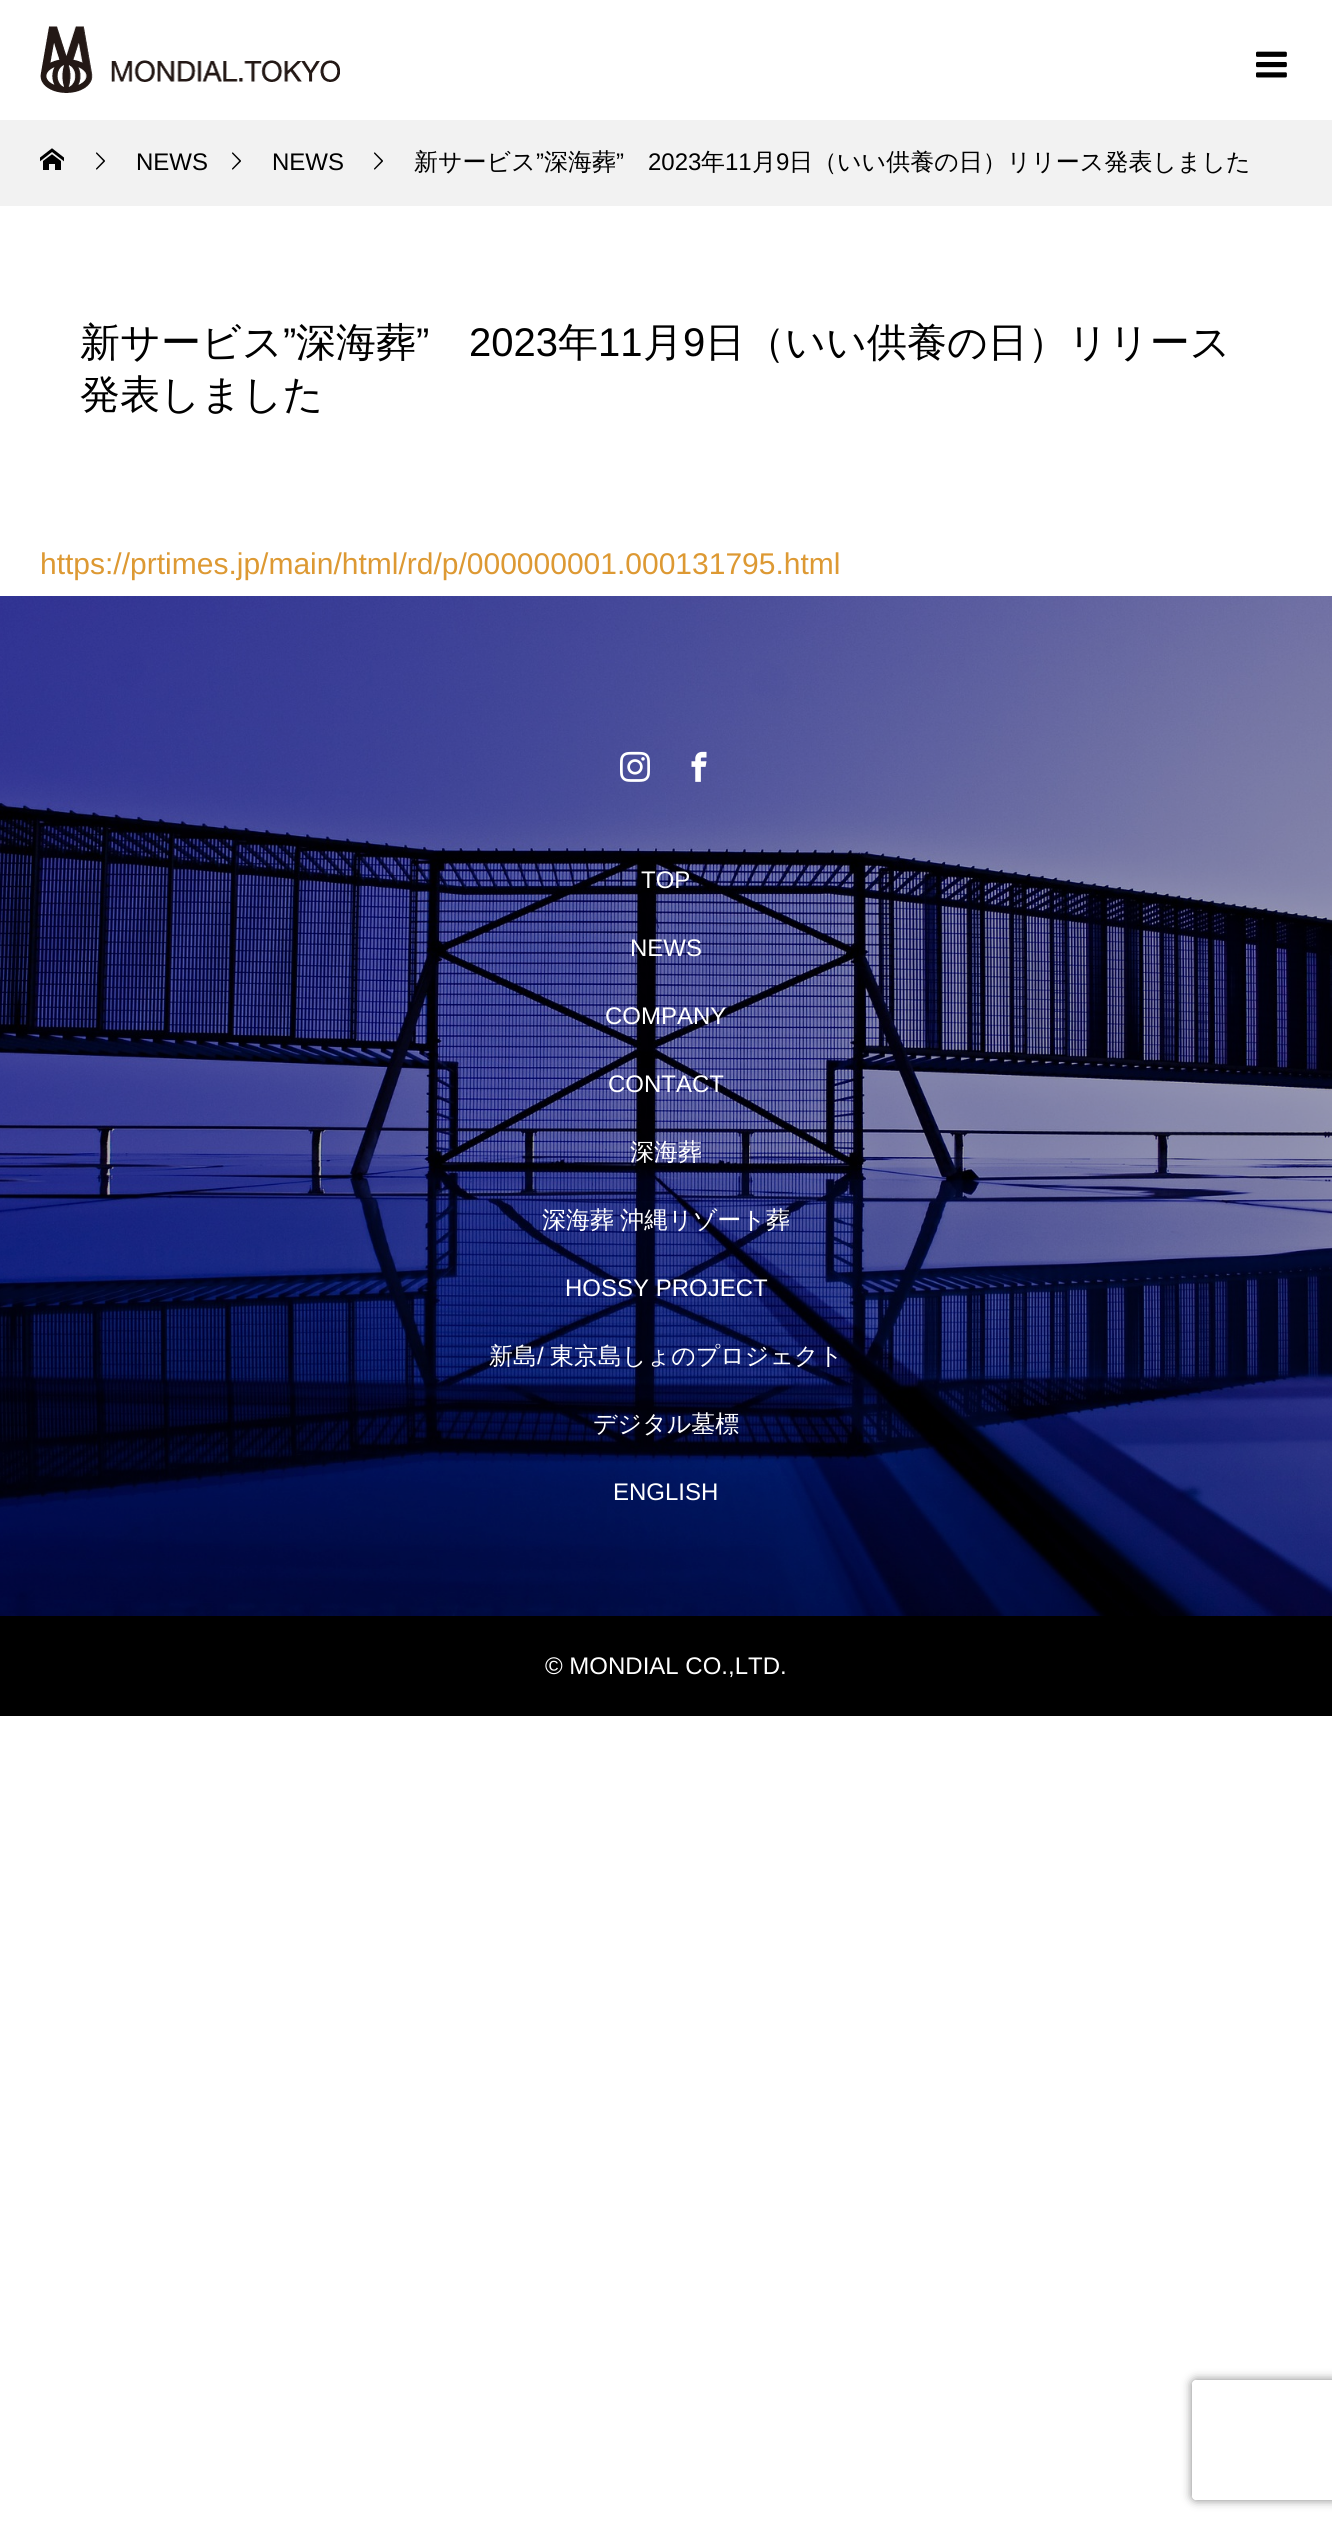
#include <cairo.h>
#include <math.h>
#include <stddef.h>


static void set_color(cairo_t *cr, unsigned color) {
    cairo_set_source_rgb(cr, (color >> 16) / 255.0, (color >> 8 & 255) / 255.0, (color & 255) / 255.0);
}

static void draw_text(cairo_t *cr, double x, double y, const char *s, const char *family, double size, int italic, int bold, unsigned color) {
    cairo_select_font_face(cr, family, italic ? CAIRO_FONT_SLANT_ITALIC : CAIRO_FONT_SLANT_NORMAL,
        bold ? CAIRO_FONT_WEIGHT_BOLD : CAIRO_FONT_WEIGHT_NORMAL);
    cairo_set_font_size(cr, size);
    set_color(cr, color);
    cairo_move_to(cr, x, y);
    cairo_show_text(cr, s);
}

static void draw_spaced(cairo_t *cr, double x, double y, const char *s, double letter, double word) {
    cairo_move_to(cr, x, y);
    while (*s) {
        char ch[5] = {0};
        int n = 0;
        do ch[n++] = *s++; while ((*s & 0xC0) == 0x80);
        cairo_show_text(cr, ch);
        cairo_rel_move_to(cr, letter + word * (*ch == ' '), 0);
    }
}

static void fill_rect(cairo_t *cr, double x, double y, double w, double h, unsigned color) {
    set_color(cr, color);
    cairo_rectangle(cr, x, y, w, h);
    cairo_fill(cr);
}

static void rounded_rect(cairo_t *cr, double x, double y, double w, double h, double r) {
    cairo_new_sub_path(cr);
    cairo_arc(cr, x + w - r, y + h - r, r, 0, M_PI / 2);
    cairo_arc(cr, x + r, y + h - r, r, M_PI / 2, M_PI);
    cairo_arc(cr, x + r, y + r, r, M_PI, 1.5 * M_PI);
    cairo_arc(cr, x + w - r, y + r, r, 1.5 * M_PI, 2 * M_PI);
    cairo_close_path(cr);
}

static void draw_shadow(cairo_t *cr, double x, double y, double w, double h, double r, double blur, double alpha) {
    cairo_push_group_with_content(cr, CAIRO_CONTENT_ALPHA);
    cairo_set_operator(cr, CAIRO_OPERATOR_SOURCE);
    for (int i = 15; i >= -15 && fmin(w, h) + blur * i / 3 > 0; i -= 2) {
        double e = blur * i / 6;
        cairo_set_source_rgba(cr, 0, 0, 0, alpha * erfc((i - 1) / 8.5) / 2);
        rounded_rect(cr, x - e, y - e, w + 2 * e, h + 2 * e, fmax(0, fmin(r + e + blur * .6, fmin(w, h) / 2 + e)));
        cairo_fill(cr);
    }
    cairo_pattern_t *soft = cairo_pop_group(cr);
    cairo_mask(cr, soft);
    cairo_pattern_destroy(soft);
}

static void draw_image(cairo_t *cr, const char *path, double x, double y, double w, double h) {
    cairo_surface_t *image = cairo_image_surface_create_from_png(path);
    cairo_save(cr);
    cairo_set_source_surface(cr, image, x, y);
    cairo_rectangle(cr, x, y, w, h);
    cairo_fill(cr);
    cairo_restore(cr);
    cairo_surface_destroy(image);
}

int main(void) {
    cairo_surface_t *surface = cairo_image_surface_create(CAIRO_FORMAT_RGB24, 1332, 2528);
    cairo_t *cr = cairo_create(surface);
    cairo_font_options_t *options = cairo_font_options_create();
    cairo_font_options_set_hint_metrics(options, CAIRO_HINT_METRICS_OFF);
    cairo_font_options_set_hint_style(options, CAIRO_HINT_STYLE_NONE);
    cairo_set_font_options(cr, options);
    cairo_set_miter_limit(cr, 4);
    set_color(cr, 0xFFFFFF);
    cairo_paint(cr);
    draw_image(cr, "assets/img1.png", 40, 26, 300, 67);
    draw_image(cr, "assets/img2.png", 1256, 51, 31, 27);
    fill_rect(cr, 0, 120, 1332, 86, 0xF2F2F2);
    draw_image(cr, "assets/img3.png", 40, 148, 24, 22);
    draw_image(cr, "assets/img4.png", 96, 152, 9, 18);
    draw_text(cr, 136, 170, "NEWS", "Liberation Sans", 24, 0, 0, 0x000000);
    draw_image(cr, "assets/img4.png", 232, 152, 9, 18);
    draw_text(cr, 272, 170, "NEWS", "Liberation Sans", 24, 0, 0, 0x000000);
    draw_image(cr, "assets/img4.png", 374, 152, 9, 18);
    draw_text(cr, 414, 170, "新サービス", "WenQuanYi Zen Hei Medium", 24, 0, 0, 0x000000);
    draw_text(cr, 536, 170, "”", "Liberation Sans", 24, 0, 0, 0x000000);
    draw_text(cr, 544, 170, "深海葬", "WenQuanYi Zen Hei Medium", 24, 0, 0, 0x000000);
    draw_text(cr, 616, 170, "”", "Liberation Sans", 24, 0, 0, 0x000000);
    draw_text(cr, 648, 170, "2023", "Liberation Sans", 24, 0, 0, 0x000000);
    draw_text(cr, 701, 170, "年", "WenQuanYi Zen Hei Medium", 24, 0, 0, 0x000000);
    draw_text(cr, 725, 170, "11", "Liberation Sans", 24, 0, 0, 0x000000);
    draw_text(cr, 752, 170, "月", "WenQuanYi Zen Hei Medium", 24, 0, 0, 0x000000);
    draw_text(cr, 776, 170, "9", "Liberation Sans", 24, 0, 0, 0x000000);
    draw_text(cr, 789, 170, "日（いい供養の日）リリース発表しました", "WenQuanYi Zen Hei Medium", 24, 0, 0, 0x000000);
    draw_text(cr, 80, 356, "新サービス", "WenQuanYi Zen Hei Medium", 40, 0, 0, 0x000000);
    draw_text(cr, 283, 356, "”", "Liberation Sans", 40, 0, 0, 0x000000);
    draw_text(cr, 296, 356, "深海葬", "WenQuanYi Zen Hei Medium", 40, 0, 0, 0x000000);
    draw_text(cr, 416, 356, "”", "Liberation Sans", 40, 0, 0, 0x000000);
    draw_text(cr, 469, 356, "2023", "Liberation Sans", 40, 0, 0, 0x000000);
    draw_text(cr, 558, 356, "年", "WenQuanYi Zen Hei Medium", 40, 0, 0, 0x000000);
    draw_text(cr, 598, 356, "11", "Liberation Sans", 40, 0, 0, 0x000000);
    draw_text(cr, 643, 356, "月", "WenQuanYi Zen Hei Medium", 40, 0, 0, 0x000000);
    draw_text(cr, 683, 356, "9", "Liberation Sans", 40, 0, 0, 0x000000);
    draw_text(cr, 705, 356, "日（いい供養の日）リリース", "WenQuanYi Zen Hei Medium", 40, 0, 0, 0x000000);
    draw_text(cr, 80, 408, "発表しました", "WenQuanYi Zen Hei Medium", 40, 0, 0, 0x000000);
    draw_text(cr, 40, 574, "https://prtimes.jp/main/html/rd/p/000000001.000131795.html", "Liberation Sans", 30, 0, 0, 0xDD9933);
    draw_image(cr, "assets/img5.png", 0, 596, 1332, 1020);
    draw_image(cr, "assets/img6.png", 620, 751, 30, 31);
    draw_image(cr, "assets/img7.png", 691, 751, 16, 31);
    draw_text(cr, 641, 888, "TOP", "Liberation Sans", 24, 0, 0, 0xFFFFFF);
    draw_text(cr, 630, 956, "NEWS", "Liberation Sans", 24, 0, 0, 0xFFFFFF);
    draw_text(cr, 605, 1024, "COMPANY", "Liberation Sans", 24, 0, 0, 0xFFFFFF);
    draw_text(cr, 608, 1092, "CONTACT", "Liberation Sans", 24, 0, 0, 0xFFFFFF);
    draw_text(cr, 630, 1160, "深海葬", "WenQuanYi Zen Hei Medium", 24, 0, 0, 0xFFFFFF);
    draw_spaced(cr, 542, 1228, "深海葬 沖縄リゾート葬", 0, -1);
    draw_text(cr, 565, 1296, "HOSSY PROJECT", "Liberation Sans", 24, 0, 0, 0xFFFFFF);
    draw_text(cr, 489, 1364, "新島", "WenQuanYi Zen Hei Medium", 24, 0, 0, 0xFFFFFF);
    draw_text(cr, 537, 1364, "/", "Liberation Sans", 24, 0, 0, 0xFFFFFF);
    draw_text(cr, 550, 1364, "東京島しょのプロジェクト", "WenQuanYi Zen Hei Medium", 24, 0, 0, 0xFFFFFF);
    draw_text(cr, 593, 1432, "デジタル墓標", "WenQuanYi Zen Hei Medium", 24, 0, 0, 0xFFFFFF);
    draw_text(cr, 613, 1500, "ENGLISH", "Liberation Sans", 24, 0, 0, 0xFFFFFF);
    fill_rect(cr, 0, 1616, 1332, 100, 0x000000);
    draw_text(cr, 545, 1674, "© MONDIAL CO.,LTD.", "Liberation Sans", 24, 0, 0, 0xFFFFFF);
    cairo_save(cr);
    cairo_set_fill_rule(cr, CAIRO_FILL_RULE_EVEN_ODD);
    cairo_new_path(cr);
    cairo_move_to(cr, 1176, 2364);
    cairo_line_to(cr, 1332, 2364);
    cairo_line_to(cr, 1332, 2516);
    cairo_line_to(cr, 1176, 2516);
    cairo_close_path(cr);
    cairo_move_to(cr, 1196, 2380);
    cairo_line_to(cr, 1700, 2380);
    cairo_curve_to(cr, 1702, 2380, 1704, 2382, 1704, 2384);
    cairo_line_to(cr, 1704, 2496);
    cairo_curve_to(cr, 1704, 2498, 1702, 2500, 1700, 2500);
    cairo_line_to(cr, 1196, 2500);
    cairo_curve_to(cr, 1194, 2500, 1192, 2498, 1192, 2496);
    cairo_line_to(cr, 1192, 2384);
    cairo_curve_to(cr, 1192, 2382, 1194, 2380, 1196, 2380);
    cairo_close_path(cr);
    cairo_clip(cr);
    set_color(cr, 0x808080);
    draw_shadow(cr, 1192, 2380, 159, 120, 4, 5, 1);
    cairo_restore(cr);
    cairo_surface_write_to_png(surface, "output.png");
    cairo_font_options_destroy(options);
    cairo_destroy(cr);
    cairo_surface_destroy(surface);
    return 0;
}
